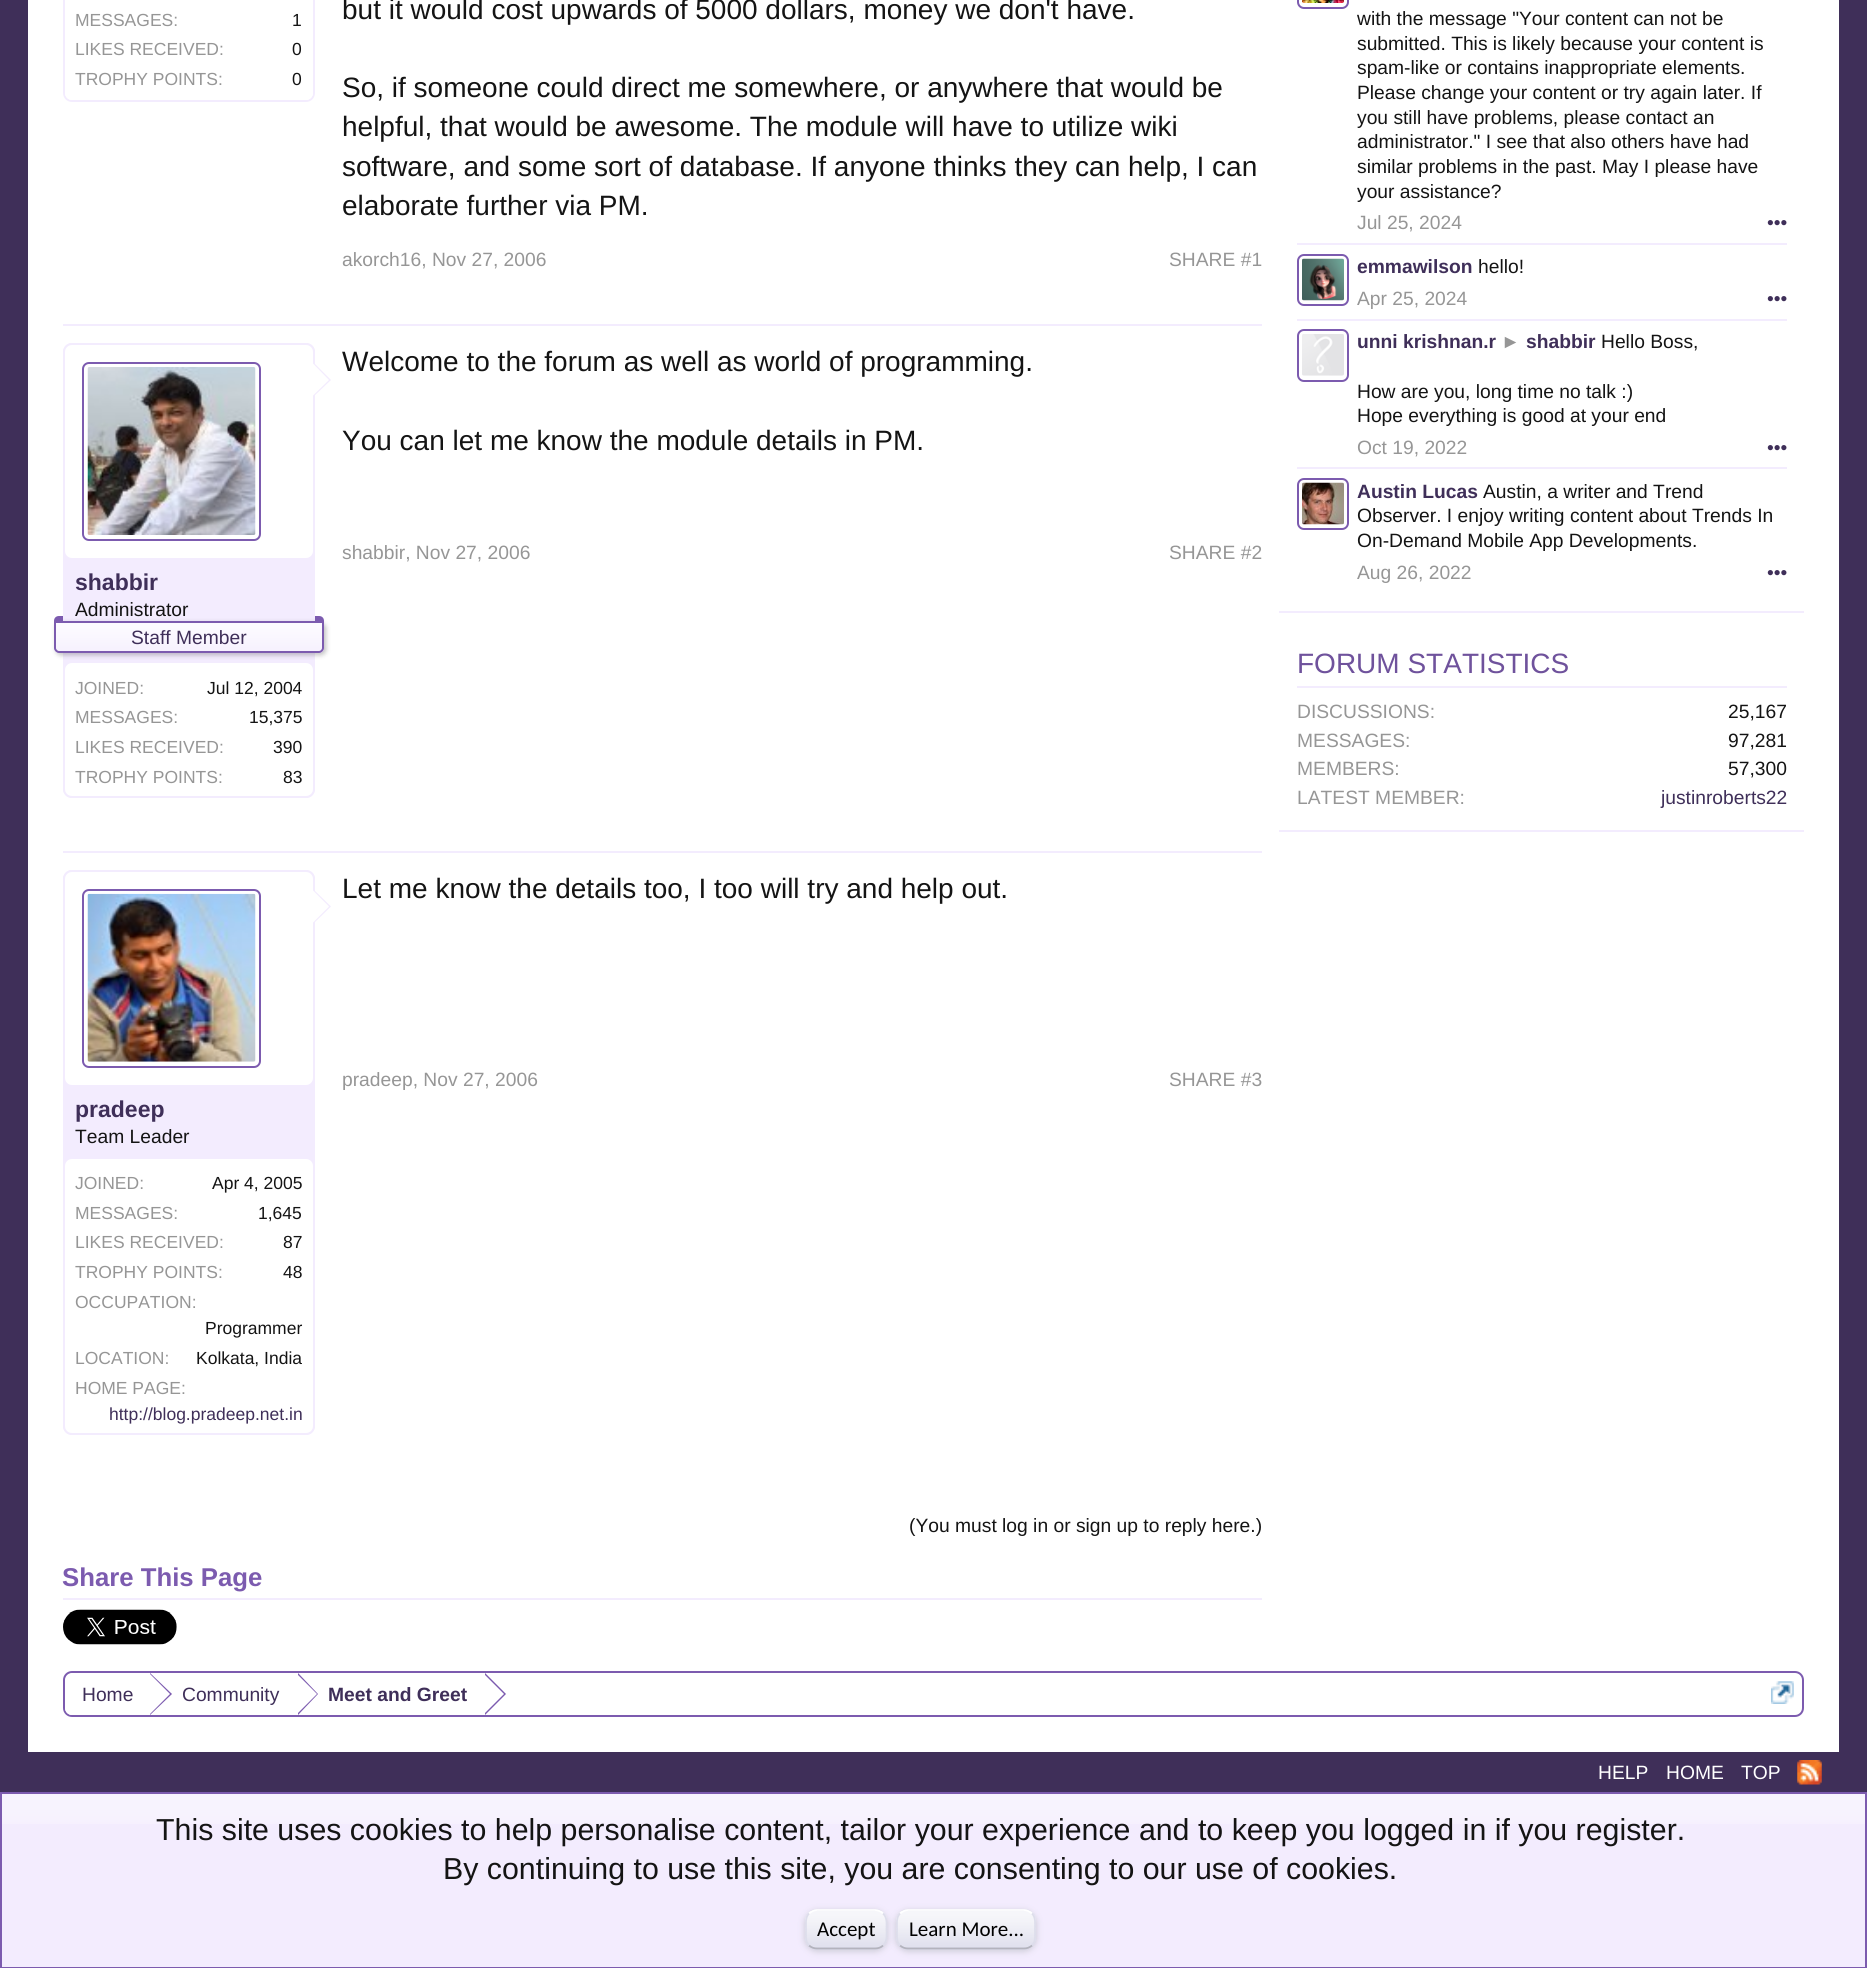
#include <cairo.h>
#include <math.h>
#include <stddef.h>


static void set_color(cairo_t *cr, unsigned color) {
    cairo_set_source_rgb(cr, (color >> 16) / 255.0, (color >> 8 & 255) / 255.0, (color & 255) / 255.0);
}

static void draw_text(cairo_t *cr, double x, double y, const char *s, const char *family, double size, int italic, int bold, unsigned color) {
    cairo_select_font_face(cr, family, italic ? CAIRO_FONT_SLANT_ITALIC : CAIRO_FONT_SLANT_NORMAL,
        bold ? CAIRO_FONT_WEIGHT_BOLD : CAIRO_FONT_WEIGHT_NORMAL);
    cairo_set_font_size(cr, size);
    set_color(cr, color);
    cairo_move_to(cr, x, y);
    cairo_show_text(cr, s);
}

static void fill_rect(cairo_t *cr, double x, double y, double w, double h, unsigned color) {
    set_color(cr, color);
    cairo_rectangle(cr, x, y, w, h);
    cairo_fill(cr);
}

static void rounded_rect(cairo_t *cr, double x, double y, double w, double h, double r) {
    cairo_new_sub_path(cr);
    cairo_arc(cr, x + w - r, y + h - r, r, 0, M_PI / 2);
    cairo_arc(cr, x + r, y + h - r, r, M_PI / 2, M_PI);
    cairo_arc(cr, x + r, y + r, r, M_PI, 1.5 * M_PI);
    cairo_arc(cr, x + w - r, y + r, r, 1.5 * M_PI, 2 * M_PI);
    cairo_close_path(cr);
}

static void draw_shadow(cairo_t *cr, double x, double y, double w, double h, double r, double blur, double alpha) {
    cairo_push_group_with_content(cr, CAIRO_CONTENT_ALPHA);
    cairo_set_operator(cr, CAIRO_OPERATOR_SOURCE);
    for (int i = 15; i >= -15 && fmin(w, h) + blur * i / 3 > 0; i -= 2) {
        double e = blur * i / 6;
        cairo_set_source_rgba(cr, 0, 0, 0, alpha * erfc((i - 1) / 8.5) / 2);
        rounded_rect(cr, x - e, y - e, w + 2 * e, h + 2 * e, fmax(0, fmin(r + e + blur * .6, fmin(w, h) / 2 + e)));
        cairo_fill(cr);
    }
    cairo_pattern_t *soft = cairo_pop_group(cr);
    cairo_mask(cr, soft);
    cairo_pattern_destroy(soft);
}

static void draw_image(cairo_t *cr, const char *path, double x, double y, double w, double h) {
    cairo_surface_t *image = cairo_image_surface_create_from_png(path);
    cairo_save(cr);
    cairo_set_source_surface(cr, image, x, y);
    cairo_rectangle(cr, x, y, w, h);
    cairo_fill(cr);
    cairo_restore(cr);
    cairo_surface_destroy(image);
}

int main(void) {
    cairo_surface_t *surface = cairo_image_surface_create(CAIRO_FORMAT_RGB24, 1867, 1968);
    cairo_t *cr = cairo_create(surface);
    cairo_font_options_t *options = cairo_font_options_create();
    cairo_font_options_set_hint_metrics(options, CAIRO_HINT_METRICS_OFF);
    cairo_font_options_set_hint_style(options, CAIRO_HINT_STYLE_NONE);
    cairo_set_font_options(cr, options);
    cairo_set_miter_limit(cr, 4);
    set_color(cr, 0x3F2F59);
    cairo_paint(cr);
    fill_rect(cr, 28, 0, 1811, 1752, 0xFFFFFF);
    draw_image(cr, "assets/img1.png", 64, 94, 250, 5);
    rounded_rect(cr, 64, -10, 250, 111, 8);
    set_color(cr, 0xF3ECFE);
    cairo_stroke(cr);
    set_color(cr, 0xFFFFFF);
    rounded_rect(cr, 65, -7, 248, 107, 7);
    cairo_fill(cr);
    draw_text(cr, 75, 26, "MESSAGES:", "Liberation Sans", 17.5, 0, 0, 0x969696);
    draw_text(cr, 292, 26, "1", "Liberation Sans", 17.5, 0, 0, 0x141414);
    draw_text(cr, 75, 55, "LIKES RECEIVED:", "Liberation Sans", 17.5, 0, 0, 0x969696);
    draw_text(cr, 292, 55, "0", "Liberation Sans", 17.5, 0, 0, 0x141414);
    draw_text(cr, 75, 85, "TROPHY POINTS:", "Liberation Sans", 17.5, 0, 0, 0x969696);
    draw_text(cr, 292, 85, "0", "Liberation Sans", 17.5, 0, 0, 0x141414);
    draw_text(cr, 342, 19, "but it would cost upwards of 5000 dollars, money we don't have.", "Liberation Sans", 28, 0, 0, 0x141414);
    draw_text(cr, 342, 97, "So, if someone could direct me somewhere, or anywhere that would be", "Liberation Sans", 28, 0, 0, 0x141414);
    draw_text(cr, 342, 136, "helpful, that would be awesome. The module will have to utilize wiki", "Liberation Sans", 28, 0, 0, 0x141414);
    draw_text(cr, 342, 176, "software, and some sort of database. If anyone thinks they can help, I can", "Liberation Sans", 28, 0, 0, 0x141414);
    draw_text(cr, 342, 215, "elaborate further via PM.", "Liberation Sans", 28, 0, 0, 0x141414);
    draw_text(cr, 342, 266, "akorch16, Nov 27, 2006", "Liberation Sans", 19.25, 0, 0, 0x969696);
    draw_text(cr, 1169, 266, "SHARE #1", "Liberation Sans", 19.25, 0, 0, 0x969696);
    fill_rect(cr, 63, 324, 1199, 2, 0xF3ECFE);
    draw_text(cr, 342, 371, "Welcome to the forum as well as world of programming.", "Liberation Sans", 28, 0, 0, 0x141414);
    draw_text(cr, 342, 450, "You can let me know the module details in PM.", "Liberation Sans", 28, 0, 0, 0x141414);
    draw_text(cr, 342, 559, "shabbir, Nov 27, 2006", "Liberation Sans", 19.25, 0, 0, 0x969696);
    draw_text(cr, 1169, 559, "SHARE #2", "Liberation Sans", 19.25, 0, 0, 0x969696);
    set_color(cr, 0xF3ECFE);
    rounded_rect(cr, 63, 343, 252, 455, 9);
    cairo_fill(cr);
    cairo_set_source_rgba(cr, 1, 1, 1, 0.23);
    cairo_rectangle(cr, 64, 791, 250, 4);
    cairo_fill(cr);
    rounded_rect(cr, 64, 344, 250, 453, 8);
    set_color(cr, 0xF3ECFE);
    cairo_stroke(cr);
    set_color(cr, 0xFFFFFF);
    rounded_rect(cr, 65, 345, 248, 213, 7);
    cairo_fill(cr);
    rounded_rect(cr, 83, 363, 177, 177, 6);
    set_color(cr, 0x7C5BAF);
    cairo_stroke(cr);
    draw_image(cr, "assets/img2.png", 87, 367, 169, 168);
    set_color(cr, 0xF3ECFE);
    cairo_new_path(cr);
    cairo_move_to(cr, 313, 397);
    cairo_line_to(cr, 313, 362);
    cairo_line_to(cr, 331, 380);
    cairo_close_path(cr);
    cairo_fill(cr);
    set_color(cr, 0xFFFFFF);
    cairo_new_path(cr);
    cairo_move_to(cr, 311.5, 397);
    cairo_line_to(cr, 311.5, 362);
    cairo_line_to(cr, 329, 380);
    cairo_close_path(cr);
    cairo_fill(cr);
    draw_text(cr, 75, 590, "shabbir", "Liberation Sans", 23, 0, 1, 0x3F2F59);
    draw_text(cr, 75, 616, "Administrator", "Liberation Sans", 19.25, 0, 0, 0x141414);
    set_color(cr, 0xFFFFFF);
    rounded_rect(cr, 65, 663, 248, 133, 7);
    cairo_fill(cr);
    set_color(cr, 0x000000);
    draw_shadow(cr, 56, 623, 270, 32, 5, 2.5, 0.25);
    set_color(cr, 0xF3ECFE);
    cairo_new_path(cr);
    cairo_move_to(cr, 54, 621);
    cairo_line_to(cr, 324, 621);
    cairo_line_to(cr, 324, 648);
    cairo_curve_to(cr, 324, 651, 322, 653, 319, 653);
    cairo_line_to(cr, 59, 653);
    cairo_curve_to(cr, 56, 653, 54, 651, 54, 648);
    cairo_close_path(cr);
    cairo_fill(cr);
    draw_image(cr, "assets/img3.png", 54, 623, 270, 28);
    cairo_new_path(cr);
    cairo_move_to(cr, 55, 622);
    cairo_line_to(cr, 323, 622);
    cairo_line_to(cr, 323, 648);
    cairo_curve_to(cr, 323, 650, 321, 652, 319, 652);
    cairo_line_to(cr, 59, 652);
    cairo_curve_to(cr, 57, 652, 55, 650, 55, 648);
    cairo_close_path(cr);
    set_color(cr, 0x7C5BAF);
    cairo_stroke(cr);
    cairo_new_path(cr);
    cairo_move_to(cr, 59, 616);
    cairo_line_to(cr, 63, 616);
    cairo_line_to(cr, 63, 623);
    cairo_line_to(cr, 54, 623);
    cairo_line_to(cr, 54, 621);
    cairo_curve_to(cr, 54, 618, 56, 616, 59, 616);
    cairo_close_path(cr);
    cairo_fill(cr);
    cairo_new_path(cr);
    cairo_move_to(cr, 315, 616);
    cairo_line_to(cr, 319, 616);
    cairo_curve_to(cr, 322, 616, 324, 618, 324, 621);
    cairo_line_to(cr, 324, 623);
    cairo_line_to(cr, 315, 623);
    cairo_close_path(cr);
    cairo_fill(cr);
    draw_text(cr, 131, 644, "Staff Member", "Liberation Sans", 19.25, 0, 0, 0x3F2F59);
    draw_text(cr, 75, 694, "JOINED:", "Liberation Sans", 17.5, 0, 0, 0x969696);
    draw_text(cr, 207, 694, "Jul 12, 2004", "Liberation Sans", 17.5, 0, 0, 0x141414);
    draw_text(cr, 75, 723, "MESSAGES:", "Liberation Sans", 17.5, 0, 0, 0x969696);
    draw_text(cr, 249, 723, "15,375", "Liberation Sans", 17.5, 0, 0, 0x141414);
    draw_text(cr, 75, 753, "LIKES RECEIVED:", "Liberation Sans", 17.5, 0, 0, 0x969696);
    draw_text(cr, 273, 753, "390", "Liberation Sans", 17.5, 0, 0, 0x141414);
    draw_text(cr, 75, 783, "TROPHY POINTS:", "Liberation Sans", 17.5, 0, 0, 0x969696);
    draw_text(cr, 283, 783, "83", "Liberation Sans", 17.5, 0, 0, 0x141414);
    fill_rect(cr, 63, 851, 1199, 2, 0xF3ECFE);
    draw_text(cr, 342, 898, "Let me know the details too, I too will try and help out.", "Liberation Sans", 28, 0, 0, 0x141414);
    draw_text(cr, 342, 1086, "pradeep, Nov 27, 2006", "Liberation Sans", 19.25, 0, 0, 0x969696);
    draw_text(cr, 1169, 1086, "SHARE #3", "Liberation Sans", 19.25, 0, 0, 0x969696);
    set_color(cr, 0xF3ECFE);
    rounded_rect(cr, 63, 870, 252, 565, 9);
    cairo_fill(cr);
    cairo_set_source_rgba(cr, 1, 1, 1, 0.23);
    cairo_rectangle(cr, 64, 1428, 250, 4);
    cairo_fill(cr);
    rounded_rect(cr, 64, 871, 250, 563, 8);
    set_color(cr, 0xF3ECFE);
    cairo_stroke(cr);
    set_color(cr, 0xFFFFFF);
    rounded_rect(cr, 65, 872, 248, 213, 7);
    cairo_fill(cr);
    rounded_rect(cr, 83, 890, 177, 177, 6);
    set_color(cr, 0x7C5BAF);
    cairo_stroke(cr);
    draw_image(cr, "assets/img4.png", 87, 893, 169, 169);
    set_color(cr, 0xF3ECFE);
    cairo_new_path(cr);
    cairo_move_to(cr, 313, 924);
    cairo_line_to(cr, 313, 889);
    cairo_line_to(cr, 331, 906.5);
    cairo_close_path(cr);
    cairo_fill(cr);
    set_color(cr, 0xFFFFFF);
    cairo_new_path(cr);
    cairo_move_to(cr, 311.5, 924);
    cairo_line_to(cr, 311.5, 889);
    cairo_line_to(cr, 329, 906.5);
    cairo_close_path(cr);
    cairo_fill(cr);
    draw_text(cr, 75, 1117, "pradeep", "Liberation Sans", 23, 0, 1, 0x3F2F59);
    draw_text(cr, 75, 1143, "Team Leader", "Liberation Sans", 19.25, 0, 0, 0x141414);
    set_color(cr, 0xFFFFFF);
    rounded_rect(cr, 65, 1159, 248, 274, 7);
    cairo_fill(cr);
    draw_text(cr, 75, 1189, "JOINED:", "Liberation Sans", 17.5, 0, 0, 0x969696);
    draw_text(cr, 212, 1189, "Apr 4, 2005", "Liberation Sans", 17.5, 0, 0, 0x141414);
    draw_text(cr, 75, 1219, "MESSAGES:", "Liberation Sans", 17.5, 0, 0, 0x969696);
    draw_text(cr, 258, 1219, "1,645", "Liberation Sans", 17.5, 0, 0, 0x141414);
    draw_text(cr, 75, 1248, "LIKES RECEIVED:", "Liberation Sans", 17.5, 0, 0, 0x969696);
    draw_text(cr, 283, 1248, "87", "Liberation Sans", 17.5, 0, 0, 0x141414);
    draw_text(cr, 75, 1278, "TROPHY POINTS:", "Liberation Sans", 17.5, 0, 0, 0x969696);
    draw_text(cr, 283, 1278, "48", "Liberation Sans", 17.5, 0, 0, 0x141414);
    draw_text(cr, 75, 1308, "OCCUPATION:", "Liberation Sans", 17.5, 0, 0, 0x969696);
    draw_text(cr, 205, 1334, "Programmer", "Liberation Sans", 17.5, 0, 0, 0x141414);
    draw_text(cr, 75, 1364, "LOCATION:", "Liberation Sans", 17.5, 0, 0, 0x969696);
    draw_text(cr, 196, 1364, "Kolkata, India", "Liberation Sans", 17.5, 0, 0, 0x141414);
    draw_text(cr, 75, 1394, "HOME PAGE:", "Liberation Sans", 17.5, 0, 0, 0x969696);
    draw_text(cr, 109, 1420, "http://blog.pradeep.net.in", "Liberation Sans", 17.5, 0, 0, 0x3F2F59);
    draw_text(cr, 909, 1532, "(You must log in or sign up to reply here.)", "Liberation Sans", 19.25, 0, 0, 0x141414);
    fill_rect(cr, 63, 1598, 1199, 2, 0xF3ECFE);
    draw_text(cr, 62, 1586, "Share This Page", "Liberation Sans", 25.75, 0, 1, 0x7C5BAF);
    draw_image(cr, "assets/img5.png", 63, 1609, 114, 36);
    fill_rect(cr, 1279, 611, 525, 2, 0xF3ECFE);
    rounded_rect(cr, 1298, -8, 50, 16, 6);
    set_color(cr, 0x7C5BAF);
    cairo_stroke(cr);
    draw_image(cr, "assets/img6.png", 1302, 0, 42, 3);
    draw_text(cr, 1357, 25, "with the message \"Your content can not be", "Liberation Sans", 19.25, 0, 0, 0x141414);
    draw_text(cr, 1357, 50, "submitted. This is likely because your content is", "Liberation Sans", 19.25, 0, 0, 0x141414);
    draw_text(cr, 1357, 74, "spam-like or contains inappropriate elements.", "Liberation Sans", 19.25, 0, 0, 0x141414);
    draw_text(cr, 1357, 99, "Please change your content or try again later. If", "Liberation Sans", 19.25, 0, 0, 0x141414);
    draw_text(cr, 1357, 124, "you still have problems, please contact an", "Liberation Sans", 19.25, 0, 0, 0x141414);
    draw_text(cr, 1357, 148, "administrator.\" I see that also others have had", "Liberation Sans", 19.25, 0, 0, 0x141414);
    draw_text(cr, 1357, 173, "similar problems in the past. May I please have", "Liberation Sans", 19.25, 0, 0, 0x141414);
    draw_text(cr, 1357, 198, "your assistance?", "Liberation Sans", 19.25, 0, 0, 0x141414);
    draw_text(cr, 1357, 229, "Jul 25, 2024", "Liberation Sans", 19.25, 0, 0, 0x969696);
    draw_text(cr, 1767, 229, "•••", "Liberation Sans", 19.25, 0, 0, 0x3F2F59);
    fill_rect(cr, 1297, 243, 490, 2, 0xF3ECFE);
    rounded_rect(cr, 1298, 255, 50, 50, 6);
    set_color(cr, 0x7C5BAF);
    cairo_stroke(cr);
    draw_image(cr, "assets/img7.png", 1302, 258, 42, 43);
    draw_text(cr, 1357, 273, "emmawilson", "Liberation Sans", 19.25, 0, 1, 0x3F2F59);
    draw_text(cr, 1478, 273, "hello!", "Liberation Sans", 19.25, 0, 0, 0x141414);
    draw_text(cr, 1357, 305, "Apr 25, 2024", "Liberation Sans", 19.25, 0, 0, 0x969696);
    draw_text(cr, 1767, 305, "•••", "Liberation Sans", 19.25, 0, 0, 0x3F2F59);
    fill_rect(cr, 1297, 319, 490, 2, 0xF3ECFE);
    rounded_rect(cr, 1298, 330, 50, 51, 6);
    set_color(cr, 0x7C5BAF);
    cairo_stroke(cr);
    draw_image(cr, "assets/img8.png", 1302, 334, 42, 42);
    draw_text(cr, 1357, 348, "unni krishnan.r", "Liberation Sans", 19.25, 0, 1, 0x3F2F59);
    draw_text(cr, 1501, 348, "►", "Liberation Sans", 19.25, 0, 1, 0x969696);
    draw_text(cr, 1526, 348, "shabbir", "Liberation Sans", 19.25, 0, 1, 0x3F2F59);
    draw_text(cr, 1601, 348, "Hello Boss,", "Liberation Sans", 19.25, 0, 0, 0x141414);
    draw_text(cr, 1357, 398, "How are you, long time no talk :)", "Liberation Sans", 19.25, 0, 0, 0x141414);
    draw_text(cr, 1357, 422, "Hope everything is good at your end", "Liberation Sans", 19.25, 0, 0, 0x141414);
    draw_text(cr, 1357, 454, "Oct 19, 2022", "Liberation Sans", 19.25, 0, 0, 0x969696);
    draw_text(cr, 1767, 454, "•••", "Liberation Sans", 19.25, 0, 0, 0x3F2F59);
    fill_rect(cr, 1297, 467, 490, 2, 0xF3ECFE);
    rounded_rect(cr, 1298, 479, 50, 50, 6);
    set_color(cr, 0x7C5BAF);
    cairo_stroke(cr);
    draw_image(cr, "assets/img9.png", 1302, 482, 42, 43);
    draw_text(cr, 1357, 498, "Austin Lucas", "Liberation Sans", 19.25, 0, 1, 0x3F2F59);
    draw_text(cr, 1483, 498, "Austin, a writer and Trend", "Liberation Sans", 19.25, 0, 0, 0x141414);
    draw_text(cr, 1357, 522, "Observer. I enjoy writing content about Trends In", "Liberation Sans", 19.25, 0, 0, 0x141414);
    draw_text(cr, 1357, 547, "On-Demand Mobile App Developments.", "Liberation Sans", 19.25, 0, 0, 0x141414);
    draw_text(cr, 1357, 579, "Aug 26, 2022", "Liberation Sans", 19.25, 0, 0, 0x969696);
    draw_text(cr, 1767, 579, "•••", "Liberation Sans", 19.25, 0, 0, 0x3F2F59);
    fill_rect(cr, 1279, 830, 525, 2, 0xF3ECFE);
    fill_rect(cr, 1297, 686, 490, 2, 0xF3ECFE);
    draw_text(cr, 1297, 673, "FORUM STATISTICS", "Liberation Sans", 28, 0, 0, 0x6F529C);
    draw_text(cr, 1297, 718, "DISCUSSIONS:", "Liberation Sans", 19.25, 0, 0, 0x969696);
    draw_text(cr, 1728, 718, "25,167", "Liberation Sans", 19.25, 0, 0, 0x141414);
    draw_text(cr, 1297, 747, "MESSAGES:", "Liberation Sans", 19.25, 0, 0, 0x969696);
    draw_text(cr, 1728, 747, "97,281", "Liberation Sans", 19.25, 0, 0, 0x141414);
    draw_text(cr, 1297, 775, "MEMBERS:", "Liberation Sans", 19.25, 0, 0, 0x969696);
    draw_text(cr, 1728, 775, "57,300", "Liberation Sans", 19.25, 0, 0, 0x141414);
    draw_text(cr, 1297, 804, "LATEST MEMBER:", "Liberation Sans", 19.25, 0, 0, 0x969696);
    draw_text(cr, 1661, 804, "justinroberts22", "Liberation Sans", 19.25, 0, 0, 0x3F2F59);
    rounded_rect(cr, 64, 1672, 1739, 44, 8);
    set_color(cr, 0x7C5BAF);
    cairo_stroke(cr);
    cairo_save(cr);
    rounded_rect(cr, 65, 1673, 1738, 42, 7);
    cairo_clip(cr);
    set_color(cr, 0xFFFFFF);
    cairo_new_path(cr);
    cairo_move_to(cr, 74, 1673);
    cairo_line_to(cr, 151, 1673);
    cairo_line_to(cr, 151, 1717);
    cairo_line_to(cr, 74, 1717);
    cairo_curve_to(cr, 69, 1717, 65, 1713, 65, 1708);
    cairo_line_to(cr, 65, 1682);
    cairo_curve_to(cr, 65, 1677, 69, 1673, 74, 1673);
    cairo_close_path(cr);
    cairo_fill(cr);
    cairo_restore(cr);
    draw_text(cr, 82, 1701, "Home", "Liberation Sans", 19.25, 0, 0, 0x3F2F59);
    set_color(cr, 0x7C5BAF);
    cairo_new_path(cr);
    cairo_move_to(cr, 150, 1715);
    cairo_line_to(cr, 150, 1673);
    cairo_line_to(cr, 172, 1694);
    cairo_close_path(cr);
    cairo_fill(cr);
    set_color(cr, 0xFFFFFF);
    cairo_new_path(cr);
    cairo_move_to(cr, 149, 1715);
    cairo_line_to(cr, 149, 1673);
    cairo_line_to(cr, 170, 1694);
    cairo_close_path(cr);
    cairo_fill(cr);
    draw_text(cr, 182, 1701, "Community", "Liberation Sans", 19.25, 0, 0, 0x3F2F59);
    set_color(cr, 0x7C5BAF);
    cairo_new_path(cr);
    cairo_move_to(cr, 298, 1715);
    cairo_line_to(cr, 298, 1673);
    cairo_line_to(cr, 318, 1694);
    cairo_close_path(cr);
    cairo_fill(cr);
    set_color(cr, 0xFFFFFF);
    cairo_new_path(cr);
    cairo_move_to(cr, 296, 1715);
    cairo_line_to(cr, 296, 1673);
    cairo_line_to(cr, 317, 1694);
    cairo_close_path(cr);
    cairo_fill(cr);
    draw_text(cr, 328, 1701, "Meet and Greet", "Liberation Sans", 19.25, 0, 1, 0x3F2F59);
    set_color(cr, 0x7C5BAF);
    cairo_new_path(cr);
    cairo_move_to(cr, 485, 1715);
    cairo_line_to(cr, 485, 1673);
    cairo_line_to(cr, 506, 1694);
    cairo_close_path(cr);
    cairo_fill(cr);
    set_color(cr, 0xFFFFFF);
    cairo_new_path(cr);
    cairo_move_to(cr, 483, 1715);
    cairo_line_to(cr, 483, 1673);
    cairo_line_to(cr, 504, 1694);
    cairo_close_path(cr);
    cairo_fill(cr);
    draw_image(cr, "assets/img10.png", 1771, 1681, 23, 23);
    draw_text(cr, 1598, 1779, "HELP", "Liberation Sans", 19.25, 0, 0, 0xFFFFFF);
    draw_text(cr, 1666, 1779, "HOME", "Liberation Sans", 19.25, 0, 0, 0xFFFFFF);
    draw_text(cr, 1741, 1779, "TOP", "Liberation Sans", 19.25, 0, 0, 0xFFFFFF);
    draw_image(cr, "assets/img11.png", 1797, 1760, 25, 25);
    fill_rect(cr, 2, 1794, 1863, 173, 0xF3ECFE);
    draw_image(cr, "assets/img12.png", 2, 1794, 1863, 30);
    cairo_rectangle(cr, 1, 1793, 1865, 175);
    set_color(cr, 0x7C5BAF);
    cairo_stroke(cr);
    draw_text(cr, 156, 1840, "This site uses cookies to help personalise content, tailor your experience and to keep you logged in if you register.", "Liberation Sans", 30.33, 0, 0, 0x141414);
    draw_text(cr, 443, 1879, "By continuing to use this site, you are consenting to our use of cookies.", "Liberation Sans", 30.33, 0, 0, 0x141414);
    set_color(cr, 0xC8C8D2);
    draw_shadow(cr, 805, 1911, 82, 40, 12, 3.5, 1);
    set_color(cr, 0xDCDCEB);
    rounded_rect(cr, 805, 1909, 82, 41, 12);
    cairo_fill(cr);
    draw_image(cr, "assets/img13.png", 805, 1911, 82, 36);
    cairo_new_path(cr);
    cairo_move_to(cr, 809, 1913.5);
    cairo_curve_to(cr, 811.5, 1911.5, 814, 1910, 817, 1910);
    cairo_line_to(cr, 875, 1910);
    cairo_curve_to(cr, 878, 1910, 881, 1911.5, 883, 1913.5);
    set_color(cr, 0xFFFFFF);
    cairo_set_line_width(cr, 1.8);
    cairo_stroke(cr);
    cairo_new_path(cr);
    cairo_move_to(cr, 883, 1913.5);
    cairo_curve_to(cr, 887.5, 1917.5, 886.5, 1924, 886.5, 1929.5);
    cairo_curve_to(cr, 886.5, 1935, 887.5, 1941, 883, 1945.5);
    set_color(cr, 0xDDDDEB);
    cairo_stroke(cr);
    cairo_new_path(cr);
    cairo_move_to(cr, 883, 1945.5);
    cairo_curve_to(cr, 881, 1947.5, 878, 1948.5, 875, 1948.5);
    cairo_line_to(cr, 817, 1948.5);
    cairo_curve_to(cr, 814, 1948.5, 811.5, 1947.5, 809, 1945.5);
    set_color(cr, 0xB3B3BD);
    cairo_stroke(cr);
    cairo_new_path(cr);
    cairo_move_to(cr, 809, 1945.5);
    cairo_curve_to(cr, 805, 1941, 806, 1935, 806, 1929.5);
    cairo_curve_to(cr, 806, 1924, 805, 1917.5, 809, 1913.5);
    set_color(cr, 0xDDDDEB);
    cairo_stroke(cr);
    draw_text(cr, 817, 1936, "Accept", "Carlito", 21, 0, 0, 0x000000);
    set_color(cr, 0xC8C8D2);
    draw_shadow(cr, 896, 1911, 140, 40, 12, 3.5, 1);
    set_color(cr, 0xDCDCEB);
    rounded_rect(cr, 896, 1909, 140, 41, 12);
    cairo_fill(cr);
    draw_image(cr, "assets/img14.png", 896, 1911, 140, 36);
    cairo_new_path(cr);
    cairo_move_to(cr, 900, 1913.5);
    cairo_curve_to(cr, 902.5, 1911.5, 905, 1910, 908, 1910);
    cairo_line_to(cr, 1024, 1910);
    cairo_curve_to(cr, 1027, 1910, 1029.5, 1911.5, 1032, 1913.5);
    set_color(cr, 0xFFFFFF);
    cairo_stroke(cr);
    cairo_new_path(cr);
    cairo_move_to(cr, 1032, 1913.5);
    cairo_curve_to(cr, 1036, 1917.5, 1035, 1924, 1035, 1929.5);
    cairo_curve_to(cr, 1035, 1935, 1036, 1941, 1032, 1945.5);
    set_color(cr, 0xDDDDEB);
    cairo_stroke(cr);
    cairo_new_path(cr);
    cairo_move_to(cr, 1032, 1945.5);
    cairo_curve_to(cr, 1029.5, 1947.5, 1027, 1948.5, 1024, 1948.5);
    cairo_line_to(cr, 908, 1948.5);
    cairo_curve_to(cr, 905, 1948.5, 902.5, 1947.5, 900, 1945.5);
    set_color(cr, 0xB3B3BD);
    cairo_stroke(cr);
    cairo_new_path(cr);
    cairo_move_to(cr, 900, 1945.5);
    cairo_curve_to(cr, 896, 1941, 897, 1935, 897, 1929.5);
    cairo_curve_to(cr, 897, 1924, 896, 1917.5, 900, 1913.5);
    set_color(cr, 0xDDDDEB);
    cairo_stroke(cr);
    draw_text(cr, 909, 1936, "Learn More...", "Carlito", 21, 0, 0, 0x000000);
    cairo_surface_write_to_png(surface, "output.png");
    cairo_font_options_destroy(options);
    cairo_destroy(cr);
    cairo_surface_destroy(surface);
    return 0;
}
